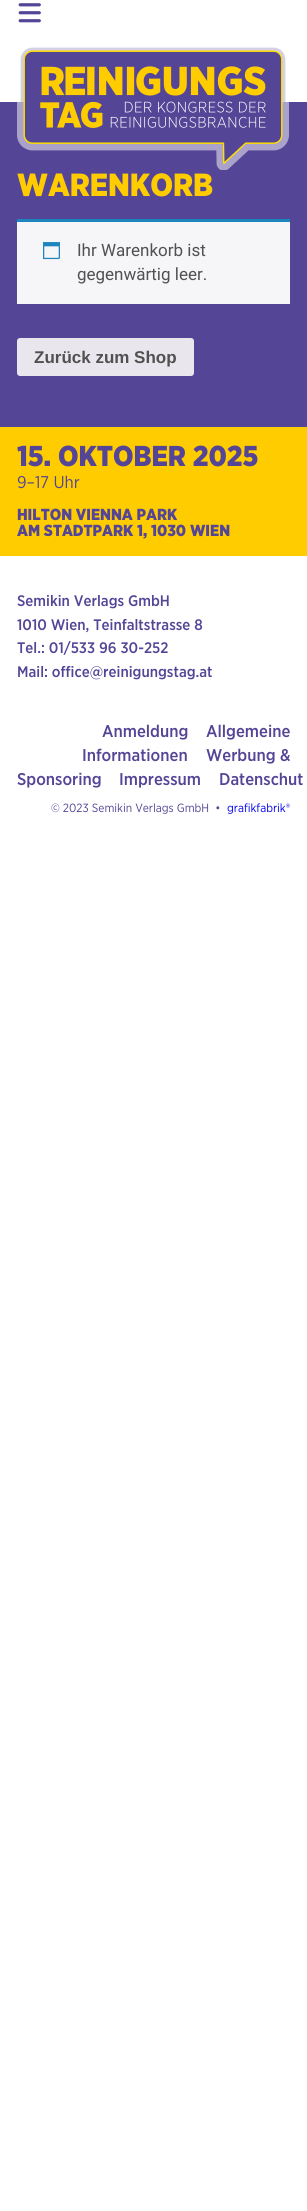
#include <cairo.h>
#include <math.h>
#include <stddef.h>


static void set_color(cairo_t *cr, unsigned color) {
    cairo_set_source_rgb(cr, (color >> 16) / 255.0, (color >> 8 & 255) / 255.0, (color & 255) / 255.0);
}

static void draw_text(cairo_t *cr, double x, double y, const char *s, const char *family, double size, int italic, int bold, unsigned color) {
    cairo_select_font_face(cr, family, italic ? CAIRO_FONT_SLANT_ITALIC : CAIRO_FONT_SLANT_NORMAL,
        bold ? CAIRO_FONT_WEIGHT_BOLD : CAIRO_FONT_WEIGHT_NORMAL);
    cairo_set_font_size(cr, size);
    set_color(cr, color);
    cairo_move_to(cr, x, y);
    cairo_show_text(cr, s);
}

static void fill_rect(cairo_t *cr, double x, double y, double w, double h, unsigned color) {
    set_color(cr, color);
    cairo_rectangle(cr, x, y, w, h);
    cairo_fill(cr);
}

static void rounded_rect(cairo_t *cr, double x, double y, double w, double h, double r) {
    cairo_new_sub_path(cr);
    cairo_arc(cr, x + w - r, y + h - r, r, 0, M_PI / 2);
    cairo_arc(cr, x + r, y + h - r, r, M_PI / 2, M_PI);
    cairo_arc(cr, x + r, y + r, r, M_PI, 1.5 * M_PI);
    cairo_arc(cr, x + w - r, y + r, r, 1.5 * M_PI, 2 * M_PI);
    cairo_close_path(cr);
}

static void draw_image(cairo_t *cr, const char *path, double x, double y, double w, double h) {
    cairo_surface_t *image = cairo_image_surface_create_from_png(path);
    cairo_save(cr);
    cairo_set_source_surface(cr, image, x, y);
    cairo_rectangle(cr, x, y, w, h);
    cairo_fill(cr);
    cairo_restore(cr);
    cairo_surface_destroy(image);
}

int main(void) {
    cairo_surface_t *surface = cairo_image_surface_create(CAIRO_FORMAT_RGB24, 307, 2211);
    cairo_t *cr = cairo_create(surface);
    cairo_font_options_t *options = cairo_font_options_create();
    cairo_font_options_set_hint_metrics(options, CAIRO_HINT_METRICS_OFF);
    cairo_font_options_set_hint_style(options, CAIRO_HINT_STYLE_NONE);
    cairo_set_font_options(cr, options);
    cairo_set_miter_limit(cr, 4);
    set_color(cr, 0xFFFFFF);
    cairo_paint(cr);
    draw_image(cr, "assets/img1.png", 18, 3, 23, 20);
    fill_rect(cr, 0, 102, 307, 325, 0x554596);
    draw_image(cr, "assets/img2.png", 17, 47, 272, 123);
    draw_text(cr, 17, 196, "WARENKORB", "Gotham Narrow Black", 32, 0, 0, 0xFFCC00);
    fill_rect(cr, 17, 222, 273, 82, 0xF6F5F8);
    fill_rect(cr, 17, 219, 273, 3, 0x1E85BE);
    draw_image(cr, "assets/img3.png", 43, 242, 17, 18);
    draw_text(cr, 77, 256, "Ihr Warenkorb ist", "Roboto", 17, 0, 0, 0x515151);
    draw_text(cr, 77, 280, "gegenwärtig leer.", "Roboto", 17, 0, 0, 0x515151);
    set_color(cr, 0xE9E6ED);
    rounded_rect(cr, 17, 338, 177, 38, 3);
    cairo_fill(cr);
    draw_text(cr, 34, 363, "Zurück zum Shop", "Liberation Sans", 17, 0, 1, 0x515151);
    fill_rect(cr, 0, 427, 307, 129, 0xFFCC00);
    draw_text(cr, 17, 466, "15. OKTOBER 2025", "Gotham Narrow Black", 28.75, 0, 0, 0x554596);
    draw_text(cr, 17, 488, "9–17 Uhr", "Gotham Narrow", 17, 0, 0, 0x554596);
    draw_text(cr, 17, 520, "HILTON VIENNA PARK", "Gotham Narrow Black", 16, 0, 0, 0x554596);
    draw_text(cr, 17, 536, "AM STADTPARK 1, 1030 WIEN", "Gotham Narrow Black", 16, 0, 0, 0x554596);
    draw_text(cr, 17, 606, "Semikin Verlags GmbH", "Gotham Narrow Medium", 15.25, 0, 0, 0x554596);
    draw_text(cr, 17, 630, "1010 Wien, Teinfaltstrasse 8", "Gotham Narrow Medium", 15.25, 0, 0, 0x554596);
    draw_text(cr, 17, 653, "Tel.: 01/533 96 30-252", "Gotham Narrow Medium", 15.25, 0, 0, 0x554596);
    draw_text(cr, 17, 677, "Mail: office@reinigungstag.at", "Gotham Narrow Medium", 15.25, 0, 0, 0x554596);
    draw_text(cr, 102, 737, "Anmeldung", "Gotham Narrow Medium", 17, 0, 0, 0x554596);
    draw_text(cr, 206, 737, "Allgemeine", "Gotham Narrow Medium", 17, 0, 0, 0x554596);
    draw_text(cr, 82, 761, "Informationen", "Gotham Narrow Medium", 17, 0, 0, 0x554596);
    draw_text(cr, 206, 761, "Werbung &", "Gotham Narrow Medium", 17, 0, 0, 0x554596);
    draw_text(cr, 17, 785, "Sponsoring", "Gotham Narrow Medium", 17, 0, 0, 0x554596);
    draw_text(cr, 119, 785, "Impressum", "Gotham Narrow Medium", 17, 0, 0, 0x554596);
    draw_text(cr, 219, 785, "Datenschut", "Gotham Narrow Medium", 17, 0, 0, 0x554596);
    draw_text(cr, 51, 812, "© 2023 Semikin Verlags GmbH  •", "Gotham Narrow", 11.9, 0, 0, 0x554596);
    draw_text(cr, 227, 812, "grafikfabrik®", "Gotham Narrow", 11.9, 0, 0, 0x0000EE);
    cairo_surface_write_to_png(surface, "output.png");
    cairo_font_options_destroy(options);
    cairo_destroy(cr);
    cairo_surface_destroy(surface);
    return 0;
}
